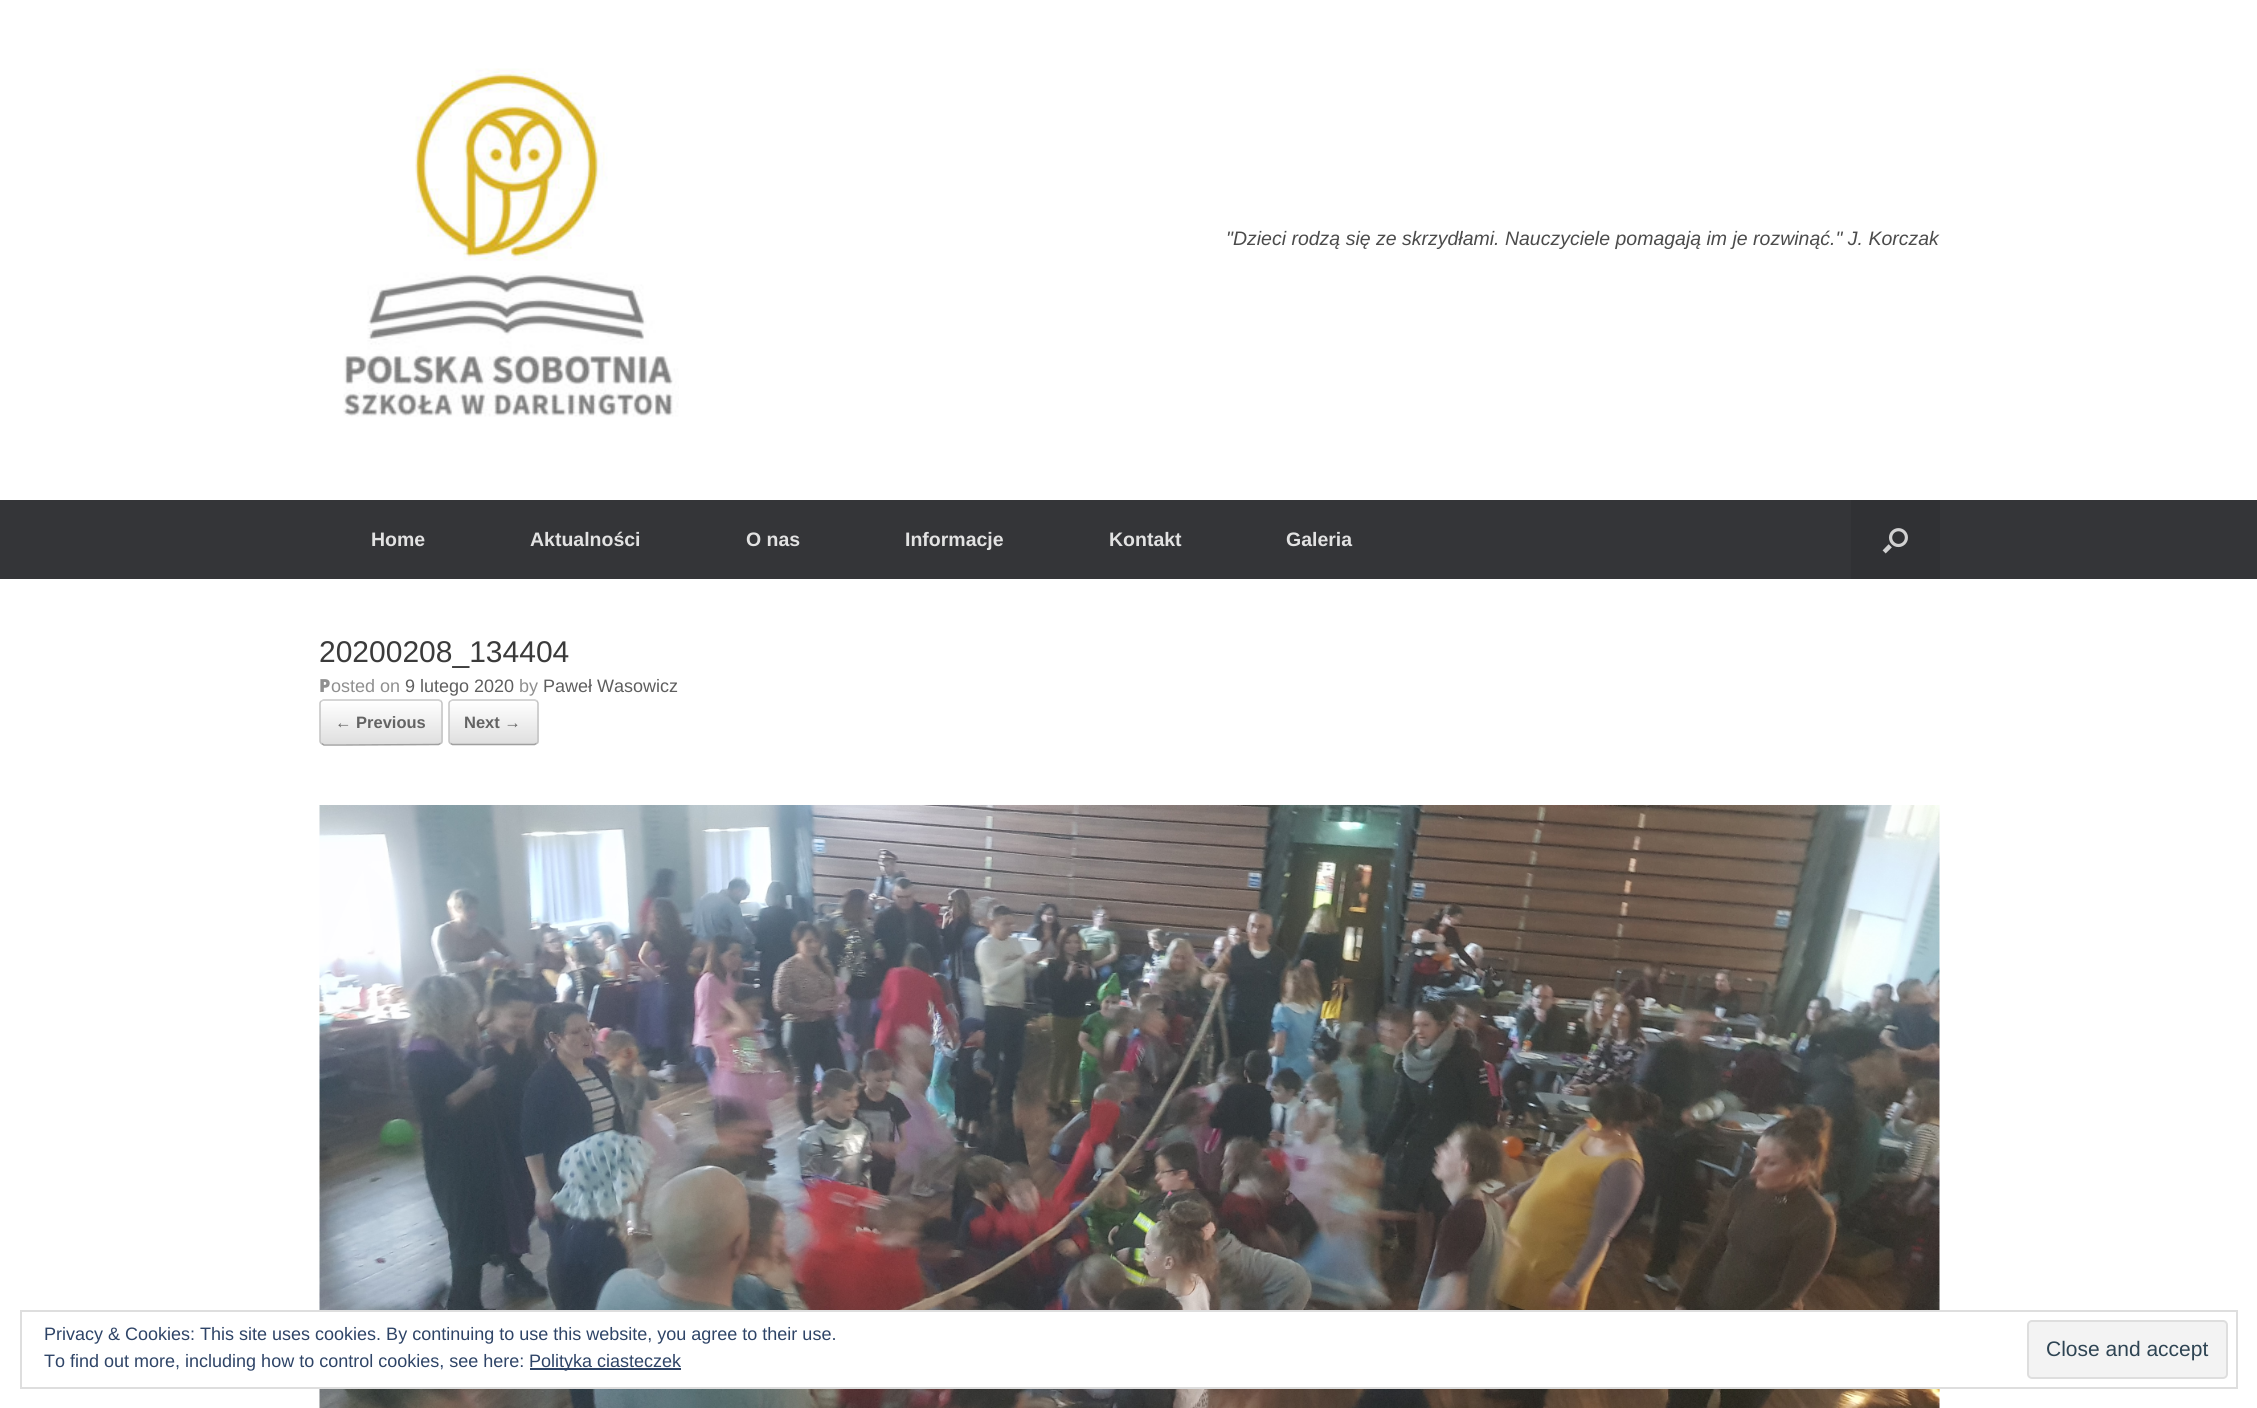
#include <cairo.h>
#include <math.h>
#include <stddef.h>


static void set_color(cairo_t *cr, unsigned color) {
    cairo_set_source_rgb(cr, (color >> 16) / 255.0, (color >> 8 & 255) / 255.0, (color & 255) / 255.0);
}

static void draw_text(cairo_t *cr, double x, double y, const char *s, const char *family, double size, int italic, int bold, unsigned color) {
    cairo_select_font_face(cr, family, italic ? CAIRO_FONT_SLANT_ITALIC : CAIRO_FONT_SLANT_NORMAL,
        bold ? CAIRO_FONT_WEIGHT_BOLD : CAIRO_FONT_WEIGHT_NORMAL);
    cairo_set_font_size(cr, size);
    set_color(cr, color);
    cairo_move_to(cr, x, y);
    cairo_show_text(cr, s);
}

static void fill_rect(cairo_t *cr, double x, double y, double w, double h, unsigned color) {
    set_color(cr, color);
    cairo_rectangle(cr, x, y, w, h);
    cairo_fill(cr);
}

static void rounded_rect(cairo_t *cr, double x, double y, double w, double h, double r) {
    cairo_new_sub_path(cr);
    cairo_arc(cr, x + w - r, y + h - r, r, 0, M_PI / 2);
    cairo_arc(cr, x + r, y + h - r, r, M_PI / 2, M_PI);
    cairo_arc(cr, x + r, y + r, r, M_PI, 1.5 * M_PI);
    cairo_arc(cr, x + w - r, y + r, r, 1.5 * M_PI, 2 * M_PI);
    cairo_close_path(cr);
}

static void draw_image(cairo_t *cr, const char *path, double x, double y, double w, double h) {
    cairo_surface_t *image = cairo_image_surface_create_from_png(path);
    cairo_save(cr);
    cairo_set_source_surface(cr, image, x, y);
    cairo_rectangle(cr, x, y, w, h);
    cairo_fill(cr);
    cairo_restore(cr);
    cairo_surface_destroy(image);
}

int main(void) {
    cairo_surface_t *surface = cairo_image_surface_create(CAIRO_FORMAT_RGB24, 2257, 1408);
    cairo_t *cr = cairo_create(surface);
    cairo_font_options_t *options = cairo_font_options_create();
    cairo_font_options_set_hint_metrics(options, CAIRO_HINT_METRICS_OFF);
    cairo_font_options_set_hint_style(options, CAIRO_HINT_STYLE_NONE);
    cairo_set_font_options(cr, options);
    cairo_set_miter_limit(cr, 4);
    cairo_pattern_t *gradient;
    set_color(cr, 0xFFFFFF);
    cairo_paint(cr);
    draw_image(cr, "assets/img1.png", 343, 68, 336, 349);
    draw_text(cr, 1226, 245, "\"Dzieci rodzą się ze skrzydłami. Nauczyciele pomagają im je rozwinąć.\" J. Korczak", "Liberation Sans", 19.5, 1, 0, 0x4B4B4B);
    fill_rect(cr, 0, 500, 2257, 79, 0x343538);
    draw_text(cr, 371, 546, "Home", "Liberation Sans", 19.5, 0, 1, 0xE2E2E2);
    draw_text(cr, 530, 546, "Aktualności", "Liberation Sans", 19.5, 0, 1, 0xE2E2E2);
    draw_text(cr, 746, 546, "O nas", "Liberation Sans", 19.5, 0, 1, 0xE2E2E2);
    draw_text(cr, 905, 546, "Informacje", "Liberation Sans", 19.5, 0, 1, 0xE2E2E2);
    draw_text(cr, 1109, 546, "Kontakt", "Liberation Sans", 19.5, 0, 1, 0xE2E2E2);
    draw_text(cr, 1286, 546, "Galeria", "Liberation Sans", 19.5, 0, 1, 0xE2E2E2);
    fill_rect(cr, 1851, 500, 89, 79, 0x303134);
    draw_image(cr, "assets/img2.png", 1882, 528, 26, 26);
    draw_text(cr, 319, 662, "20200208_134404", "Liberation Sans", 30, 0, 0, 0x3B3B3B);
    draw_text(cr, 319, 692, "P", "Noto Sans Black", 18, 0, 0, 0x8F8F8F);
    draw_text(cr, 331, 692, "osted on", "Liberation Sans", 18, 0, 0, 0x8F8F8F);
    draw_text(cr, 405, 692, "9 lutego 2020", "Liberation Sans", 18, 0, 0, 0x5E5E5E);
    draw_text(cr, 519, 692, "by", "Liberation Sans", 18, 0, 0, 0x8F8F8F);
    draw_text(cr, 543, 692, "Paweł Wasowicz", "Liberation Sans", 18, 0, 0, 0x5E5E5E);
    cairo_save(cr);
    rounded_rect(cr, 320, 699, 123, 47, 5);
    cairo_clip(cr);
    gradient = cairo_pattern_create_linear(321, 701, 321, 657);
    cairo_pattern_add_color_stop_rgba(gradient, 0, 0.875, 0.875, 0.875, 1);
    cairo_pattern_add_color_stop_rgba(gradient, 1, 1, 1, 1, 1);
    cairo_set_source(cr, gradient);
    cairo_pattern_destroy(gradient);
    cairo_rectangle(cr, 320, 699, 123, 2);
    cairo_fill(cr);
    gradient = cairo_pattern_create_linear(321, 744, 321, 701);
    cairo_pattern_add_color_stop_rgba(gradient, 0, 0.875, 0.875, 0.875, 1);
    cairo_pattern_add_color_stop_rgba(gradient, 1, 1, 1, 1, 1);
    cairo_set_source(cr, gradient);
    cairo_pattern_destroy(gradient);
    cairo_rectangle(cr, 320, 701, 123, 43);
    cairo_fill(cr);
    cairo_restore(cr);
    cairo_new_path(cr);
    cairo_move_to(cr, 321.5, 701);
    cairo_line_to(cr, 323.5, 700);
    cairo_line_to(cr, 419, 700);
    cairo_line_to(cr, 438, 700);
    cairo_line_to(cr, 440.5, 701);
    set_color(cr, 0xD2D2D2);
    cairo_set_line_width(cr, 1.5);
    cairo_stroke(cr);
    cairo_new_path(cr);
    cairo_move_to(cr, 440.5, 701);
    cairo_curve_to(cr, 441.5, 701.5, 442, 702.5, 442, 703.5);
    cairo_line_to(cr, 442, 741);
    cairo_curve_to(cr, 442, 742, 441.5, 743, 440.5, 743.5);
    set_color(cr, 0xC3C3C3);
    cairo_stroke(cr);
    cairo_new_path(cr);
    cairo_move_to(cr, 440.5, 743.5);
    cairo_line_to(cr, 438.5, 744.5);
    cairo_line_to(cr, 343, 745);
    cairo_line_to(cr, 324, 745);
    cairo_line_to(cr, 321.5, 743.5);
    set_color(cr, 0x9F9F9F);
    cairo_stroke(cr);
    cairo_new_path(cr);
    cairo_move_to(cr, 321.5, 743.5);
    cairo_curve_to(cr, 320.5, 743, 320, 742, 320, 741);
    cairo_line_to(cr, 320, 703.5);
    cairo_curve_to(cr, 320, 702.5, 320.5, 701.5, 321.5, 701);
    set_color(cr, 0xC3C3C3);
    cairo_stroke(cr);
    draw_text(cr, 335, 728, "← Previous", "Liberation Sans", 16.5, 0, 1, 0x646464);
    cairo_save(cr);
    rounded_rect(cr, 449, 699, 90, 47, 5);
    cairo_clip(cr);
    gradient = cairo_pattern_create_linear(450, 701, 450, 657);
    cairo_pattern_add_color_stop_rgba(gradient, 0, 0.875, 0.875, 0.875, 1);
    cairo_pattern_add_color_stop_rgba(gradient, 1, 1, 1, 1, 1);
    cairo_set_source(cr, gradient);
    cairo_pattern_destroy(gradient);
    cairo_rectangle(cr, 449, 699, 90, 2);
    cairo_fill(cr);
    gradient = cairo_pattern_create_linear(450, 744, 450, 701);
    cairo_pattern_add_color_stop_rgba(gradient, 0, 0.875, 0.875, 0.875, 1);
    cairo_pattern_add_color_stop_rgba(gradient, 1, 1, 1, 1, 1);
    cairo_set_source(cr, gradient);
    cairo_pattern_destroy(gradient);
    cairo_rectangle(cr, 449, 701, 90, 43);
    cairo_fill(cr);
    cairo_restore(cr);
    cairo_new_path(cr);
    cairo_move_to(cr, 450.5, 701);
    cairo_line_to(cr, 452.5, 700);
    cairo_line_to(cr, 534.5, 700);
    cairo_line_to(cr, 536.5, 701);
    set_color(cr, 0xD2D2D2);
    cairo_stroke(cr);
    cairo_new_path(cr);
    cairo_move_to(cr, 536.5, 701);
    cairo_curve_to(cr, 537.5, 701.5, 538, 702.5, 538, 703.5);
    cairo_line_to(cr, 538, 741);
    cairo_curve_to(cr, 538, 742, 537.5, 743, 536.5, 743.5);
    set_color(cr, 0xC3C3C3);
    cairo_stroke(cr);
    cairo_new_path(cr);
    cairo_move_to(cr, 536.5, 743.5);
    cairo_line_to(cr, 534.5, 744.5);
    cairo_line_to(cr, 452.5, 744.5);
    cairo_line_to(cr, 450.5, 743.5);
    set_color(cr, 0x9F9F9F);
    cairo_stroke(cr);
    cairo_new_path(cr);
    cairo_move_to(cr, 450.5, 743.5);
    cairo_curve_to(cr, 449.5, 743, 449, 742, 449, 741);
    cairo_line_to(cr, 449, 703.5);
    cairo_curve_to(cr, 449, 702.5, 449.5, 701.5, 450.5, 701);
    set_color(cr, 0xC3C3C3);
    cairo_stroke(cr);
    draw_text(cr, 464, 728, "Next →", "Liberation Sans", 16.5, 0, 1, 0x646464);
    draw_image(cr, "assets/img3.png", 319, 805, 1621, 603);
    fill_rect(cr, 319, 1312, 1621, 75, 0xFFFFFF);
    cairo_rectangle(cr, 21, 1311, 2216, 77);
    set_color(cr, 0xDEDEDE);
    cairo_set_line_width(cr, 2);
    cairo_stroke(cr);
    draw_text(cr, 44, 1340, "Privacy & Cookies: This site uses cookies. By continuing to use this website, you agree to their use.", "Liberation Sans", 18, 0, 0, 0x2E4467);
    draw_text(cr, 44, 1367, "To find out more, including how to control cookies, see here:", "Liberation Sans", 18, 0, 0, 0x2E4467);
    fill_rect(cr, 530, 1368, 151, 2, 0x2E4467);
    draw_text(cr, 529, 1367, "Polityka ciasteczek", "Liberation Sans", 18, 0, 0, 0x2E4467);
    set_color(cr, 0xF3F3F3);
    rounded_rect(cr, 2028, 1321, 199, 57, 4);
    cairo_fill_preserve(cr);
    set_color(cr, 0xDEDEDE);
    cairo_stroke(cr);
    draw_text(cr, 2046, 1356, "Close and accept", "Liberation Sans", 21, 0, 0, 0x2E4453);
    cairo_surface_write_to_png(surface, "output.png");
    cairo_font_options_destroy(options);
    cairo_destroy(cr);
    cairo_surface_destroy(surface);
    return 0;
}
